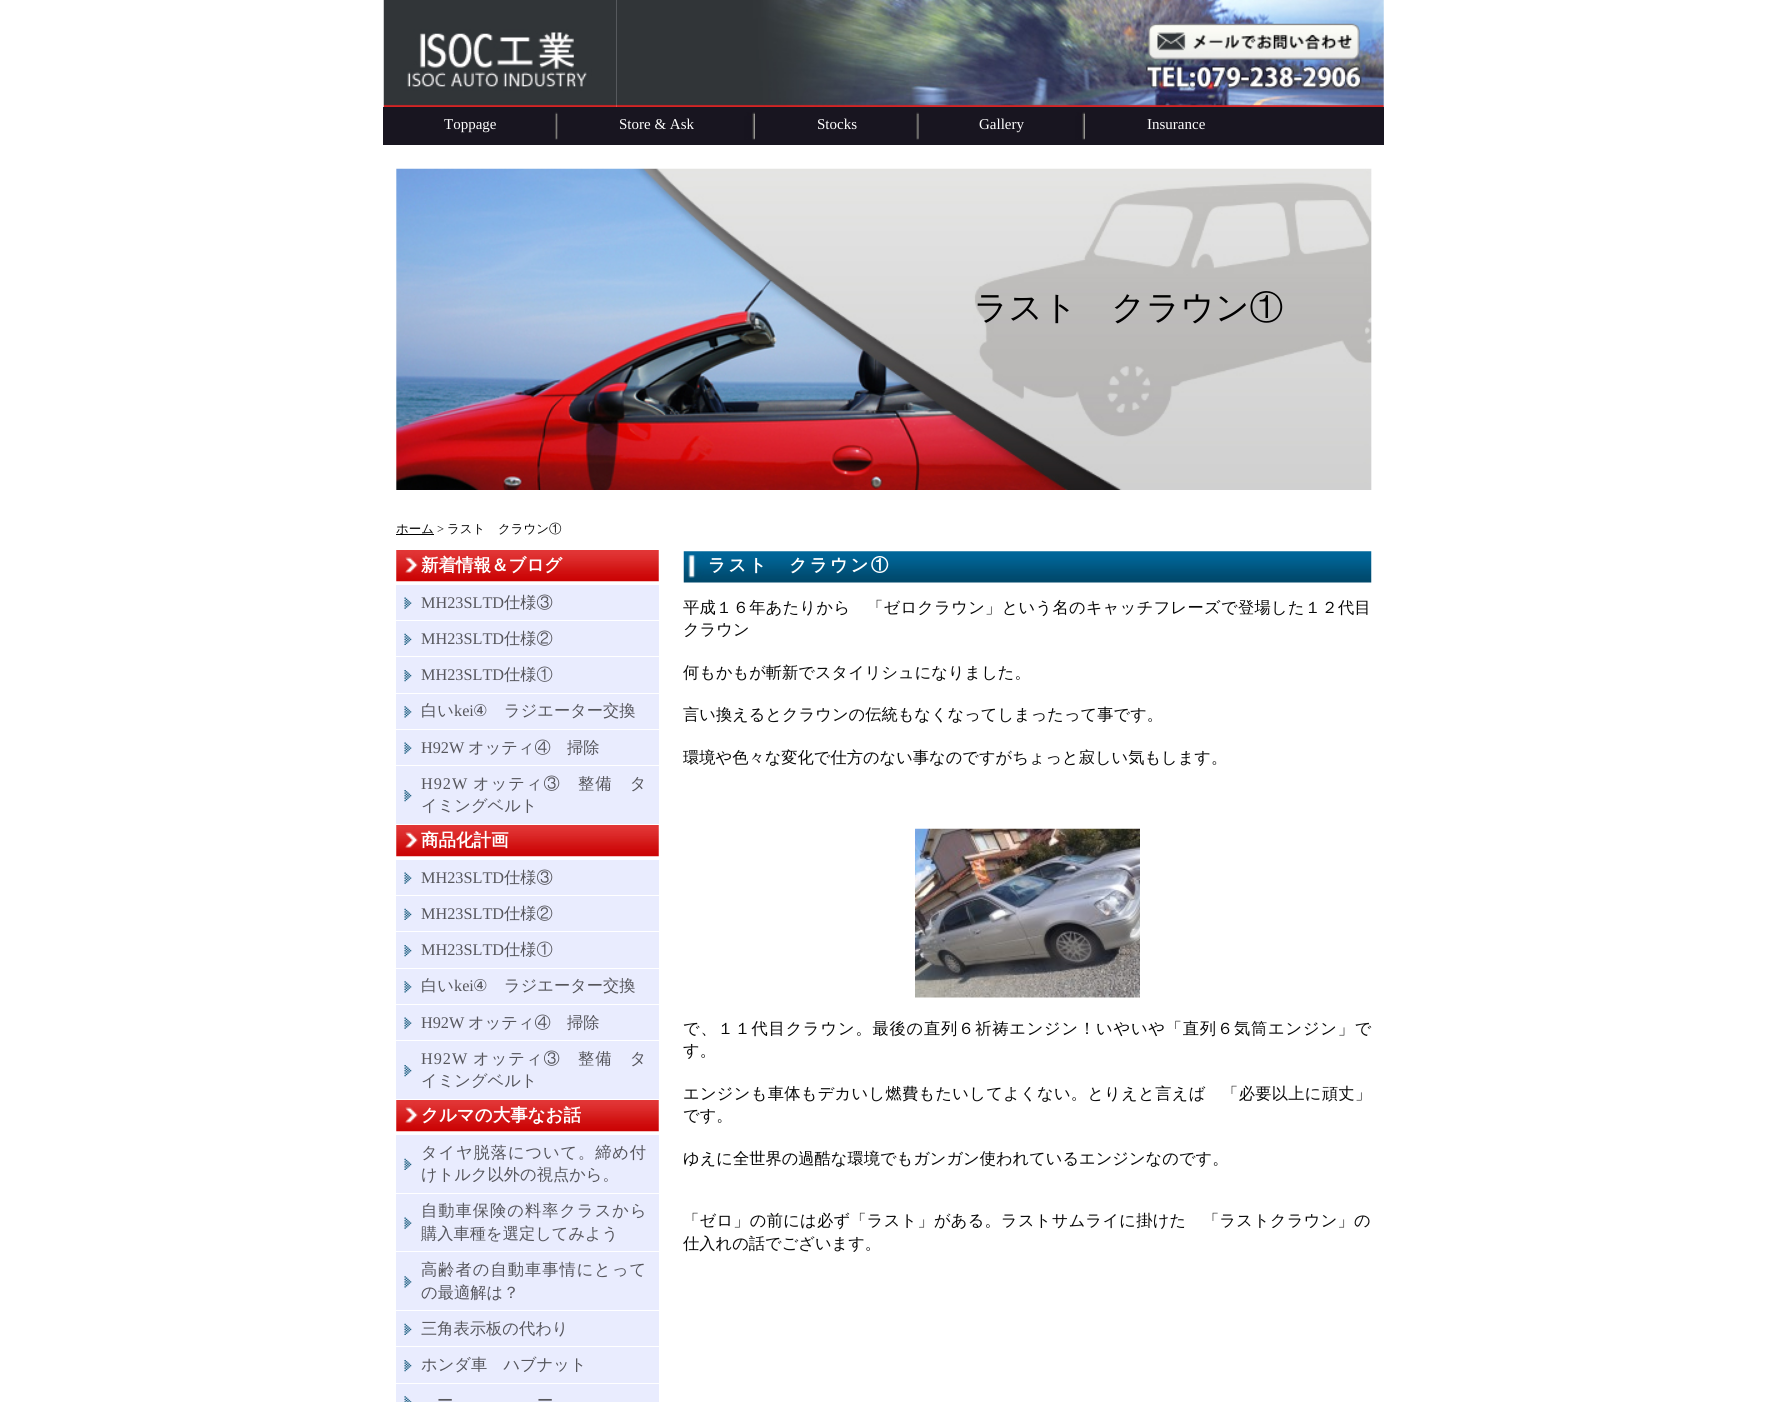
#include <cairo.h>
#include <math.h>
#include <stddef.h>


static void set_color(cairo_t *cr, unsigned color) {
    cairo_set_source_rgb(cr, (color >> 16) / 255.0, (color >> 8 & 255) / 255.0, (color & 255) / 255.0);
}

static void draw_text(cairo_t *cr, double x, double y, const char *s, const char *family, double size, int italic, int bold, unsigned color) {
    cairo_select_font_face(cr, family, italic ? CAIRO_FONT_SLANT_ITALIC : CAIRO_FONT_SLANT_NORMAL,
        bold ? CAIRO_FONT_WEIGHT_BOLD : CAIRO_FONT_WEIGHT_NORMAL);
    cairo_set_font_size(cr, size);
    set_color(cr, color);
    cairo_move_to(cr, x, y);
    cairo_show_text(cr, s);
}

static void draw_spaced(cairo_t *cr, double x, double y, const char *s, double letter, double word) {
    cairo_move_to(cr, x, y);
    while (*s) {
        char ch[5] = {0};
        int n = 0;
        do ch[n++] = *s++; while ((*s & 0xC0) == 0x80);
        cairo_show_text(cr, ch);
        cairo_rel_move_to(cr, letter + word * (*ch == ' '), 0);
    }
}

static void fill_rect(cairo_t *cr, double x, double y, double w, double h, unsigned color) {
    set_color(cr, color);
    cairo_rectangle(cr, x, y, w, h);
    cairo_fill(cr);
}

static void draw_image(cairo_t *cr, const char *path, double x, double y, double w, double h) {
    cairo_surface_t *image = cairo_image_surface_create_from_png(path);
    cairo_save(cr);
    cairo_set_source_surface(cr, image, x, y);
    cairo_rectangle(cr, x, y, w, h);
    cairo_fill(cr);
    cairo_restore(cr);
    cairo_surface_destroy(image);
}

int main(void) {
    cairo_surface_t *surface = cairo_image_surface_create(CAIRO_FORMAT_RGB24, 1766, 1402);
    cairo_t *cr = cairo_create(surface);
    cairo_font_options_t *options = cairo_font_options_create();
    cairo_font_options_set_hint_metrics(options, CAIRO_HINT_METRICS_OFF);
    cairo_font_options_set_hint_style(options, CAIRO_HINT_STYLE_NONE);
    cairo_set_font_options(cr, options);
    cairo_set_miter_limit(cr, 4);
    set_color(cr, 0xFFFFFF);
    cairo_paint(cr);
    draw_image(cr, "assets/img1.png", 383, 0, 234, 107);
    draw_image(cr, "assets/img2.png", 616, 0, 768, 107);
    fill_rect(cr, 383, 107, 1001, 38, 0x181520);
    draw_image(cr, "assets/img3.png", 555, 112, 3, 28);
    draw_text(cr, 444, 129, "Toppage", "Liberation Serif", 15, 0, 0, 0xFFFFFF);
    draw_image(cr, "assets/img4.png", 557, 112, 198, 28);
    draw_text(cr, 619, 129, "Store & Ask", "Liberation Serif", 15, 0, 0, 0xFFFFFF);
    draw_image(cr, "assets/img5.png", 915, 112, 4, 28);
    draw_text(cr, 817, 129, "Stocks", "Liberation Serif", 15, 0, 0, 0xFFFFFF);
    draw_image(cr, "assets/img6.png", 918, 112, 167, 28);
    draw_text(cr, 979, 129, "Gallery", "Liberation Serif", 15, 0, 0, 0xFFFFFF);
    draw_text(cr, 1147, 129, "Insurance", "Liberation Serif", 15, 0, 0, 0xFFFFFF);
    draw_image(cr, "assets/img7.png", 396, 168, 976, 322);
    draw_text(cr, 974, 319, "ラスト　クラウン①", "WenQuanYi Zen Hei Medium", 33.75, 0, 0, 0x000000);
    fill_rect(cr, 396, 534, 38, 1, 0x000000);
    draw_text(cr, 396, 533, "ホーム", "WenQuanYi Zen Hei Medium", 12.5, 0, 0, 0x000000);
    draw_text(cr, 437, 533, ">", "Liberation Serif", 12.5, 0, 0, 0x080808);
    draw_text(cr, 447, 533, "ラスト　クラウン①", "WenQuanYi Zen Hei Medium", 12.5, 0, 0, 0x080808);
    draw_image(cr, "assets/img8.png", 396, 550, 263, 32);
    draw_text(cr, 421, 571, "新着情報＆ブログ", "WenQuanYi Zen Hei", 17.5, 0, 1, 0xFFFFFF);
    fill_rect(cr, 396, 585, 263, 239, 0xE9ECFE);
    draw_image(cr, "assets/img9.png", 404, 597, 8, 12);
    fill_rect(cr, 396, 620, 263, 1, 0xFFFFFF);
    draw_text(cr, 421, 608, "MH23SLTD", "Liberation Serif", 16.25, 0, 0, 0x56565C);
    draw_text(cr, 504, 608, "仕様③", "WenQuanYi Zen Hei Medium", 16.25, 0, 0, 0x56565C);
    draw_image(cr, "assets/img10.png", 404, 633, 8, 12);
    fill_rect(cr, 396, 656, 263, 1, 0xFFFFFF);
    draw_text(cr, 421, 644, "MH23SLTD", "Liberation Serif", 16.25, 0, 0, 0x56565C);
    draw_text(cr, 504, 644, "仕様②", "WenQuanYi Zen Hei Medium", 16.25, 0, 0, 0x56565C);
    draw_image(cr, "assets/img11.png", 404, 670, 8, 12);
    fill_rect(cr, 396, 693, 263, 1, 0xFFFFFF);
    draw_text(cr, 421, 680, "MH23SLTD", "Liberation Serif", 16.25, 0, 0, 0x56565C);
    draw_text(cr, 504, 680, "仕様①", "WenQuanYi Zen Hei Medium", 16.25, 0, 0, 0x56565C);
    draw_image(cr, "assets/img12.png", 404, 706, 8, 12);
    fill_rect(cr, 396, 729, 263, 1, 0xFFFFFF);
    draw_text(cr, 421, 716, "白い", "WenQuanYi Zen Hei Medium", 16.25, 0, 0, 0x56565C);
    draw_text(cr, 454, 716, "kei", "Liberation Serif", 16.25, 0, 0, 0x56565C);
    draw_text(cr, 473, 716, "④", "DejaVu Sans", 16.25, 0, 0, 0x56565C);
    draw_text(cr, 504, 716, "ラジエーター交換", "WenQuanYi Zen Hei Medium", 16.25, 0, 0, 0x56565C);
    draw_image(cr, "assets/img9.png", 404, 742, 8, 12);
    fill_rect(cr, 396, 765, 263, 1, 0xFFFFFF);
    draw_text(cr, 421, 753, "H92W", "Liberation Serif", 16.25, 0, 0, 0x56565C);
    draw_text(cr, 468, 753, "オッティ④　掃除", "WenQuanYi Zen Hei Medium", 16.25, 0, 0, 0x56565C);
    draw_image(cr, "assets/img11.png", 404, 790, 8, 12);
    cairo_select_font_face(cr, "Liberation Serif", CAIRO_FONT_SLANT_NORMAL, CAIRO_FONT_WEIGHT_NORMAL);
    draw_spaced(cr, 421, 789, "H92W", 1, 0);
    cairo_select_font_face(cr, "WenQuanYi Zen Hei Medium", CAIRO_FONT_SLANT_NORMAL, CAIRO_FONT_WEIGHT_NORMAL);
    draw_spaced(cr, 473, 789, "オッティ③　整備　タ", 1, 0);
    draw_text(cr, 421, 811, "イミングベルト", "WenQuanYi Zen Hei Medium", 16.25, 0, 0, 0x56565C);
    draw_image(cr, "assets/img8.png", 396, 825, 263, 32);
    draw_text(cr, 421, 846, "商品化計画", "WenQuanYi Zen Hei", 17.5, 0, 1, 0xFFFFFF);
    fill_rect(cr, 396, 860, 263, 239, 0xE9ECFE);
    draw_image(cr, "assets/img9.png", 404, 872, 8, 12);
    fill_rect(cr, 396, 895, 263, 1, 0xFFFFFF);
    draw_text(cr, 421, 883, "MH23SLTD", "Liberation Serif", 16.25, 0, 0, 0x56565C);
    draw_text(cr, 504, 883, "仕様③", "WenQuanYi Zen Hei Medium", 16.25, 0, 0, 0x56565C);
    draw_image(cr, "assets/img10.png", 404, 908, 8, 12);
    fill_rect(cr, 396, 931, 263, 1, 0xFFFFFF);
    draw_text(cr, 421, 919, "MH23SLTD", "Liberation Serif", 16.25, 0, 0, 0x56565C);
    draw_text(cr, 504, 919, "仕様②", "WenQuanYi Zen Hei Medium", 16.25, 0, 0, 0x56565C);
    draw_image(cr, "assets/img11.png", 404, 945, 8, 12);
    fill_rect(cr, 396, 968, 263, 1, 0xFFFFFF);
    draw_text(cr, 421, 955, "MH23SLTD", "Liberation Serif", 16.25, 0, 0, 0x56565C);
    draw_text(cr, 504, 955, "仕様①", "WenQuanYi Zen Hei Medium", 16.25, 0, 0, 0x56565C);
    draw_image(cr, "assets/img12.png", 404, 981, 8, 12);
    fill_rect(cr, 396, 1004, 263, 1, 0xFFFFFF);
    draw_text(cr, 421, 991, "白い", "WenQuanYi Zen Hei Medium", 16.25, 0, 0, 0x56565C);
    draw_text(cr, 454, 991, "kei", "Liberation Serif", 16.25, 0, 0, 0x56565C);
    draw_text(cr, 473, 991, "④", "DejaVu Sans", 16.25, 0, 0, 0x56565C);
    draw_text(cr, 504, 991, "ラジエーター交換", "WenQuanYi Zen Hei Medium", 16.25, 0, 0, 0x56565C);
    draw_image(cr, "assets/img9.png", 404, 1017, 8, 12);
    fill_rect(cr, 396, 1040, 263, 1, 0xFFFFFF);
    draw_text(cr, 421, 1028, "H92W", "Liberation Serif", 16.25, 0, 0, 0x56565C);
    draw_text(cr, 468, 1028, "オッティ④　掃除", "WenQuanYi Zen Hei Medium", 16.25, 0, 0, 0x56565C);
    draw_image(cr, "assets/img11.png", 404, 1065, 8, 12);
    cairo_select_font_face(cr, "Liberation Serif", CAIRO_FONT_SLANT_NORMAL, CAIRO_FONT_WEIGHT_NORMAL);
    draw_spaced(cr, 421, 1064, "H92W", 1, 0);
    cairo_select_font_face(cr, "WenQuanYi Zen Hei Medium", CAIRO_FONT_SLANT_NORMAL, CAIRO_FONT_WEIGHT_NORMAL);
    draw_spaced(cr, 473, 1064, "オッティ③　整備　タ", 1, 0);
    draw_text(cr, 421, 1086, "イミングベルト", "WenQuanYi Zen Hei Medium", 16.25, 0, 0, 0x56565C);
    draw_image(cr, "assets/img8.png", 396, 1100, 263, 32);
    draw_text(cr, 421, 1121, "クルマの大事なお話", "WenQuanYi Zen Hei", 17.5, 0, 1, 0xFFFFFF);
    fill_rect(cr, 396, 1135, 263, 267, 0xE9ECFE);
    draw_image(cr, "assets/img10.png", 404, 1158, 8, 12);
    fill_rect(cr, 396, 1193, 263, 1, 0xFFFFFF);
    cairo_select_font_face(cr, "WenQuanYi Zen Hei Medium", CAIRO_FONT_SLANT_NORMAL, CAIRO_FONT_WEIGHT_NORMAL);
    cairo_set_font_size(cr, 16.25);
    set_color(cr, 0x56565C);
    draw_spaced(cr, 421, 1158, "タイヤ脱落について。締め付", 0.9, 0);
    draw_text(cr, 421, 1180, "けトルク以外の視点から。", "WenQuanYi Zen Hei Medium", 16.25, 0, 0, 0x56565C);
    draw_image(cr, "assets/img9.png", 404, 1217, 8, 12);
    fill_rect(cr, 396, 1251, 263, 1, 0xFFFFFF);
    set_color(cr, 0x56565C);
    draw_spaced(cr, 421, 1216, "自動車保険の料率クラスから", 1, 0);
    draw_text(cr, 421, 1239, "購入車種を選定してみよう", "WenQuanYi Zen Hei Medium", 16.25, 0, 0, 0x56565C);
    draw_image(cr, "assets/img12.png", 404, 1276, 8, 12);
    fill_rect(cr, 396, 1310, 263, 1, 0xFFFFFF);
    set_color(cr, 0x56565C);
    draw_spaced(cr, 421, 1275, "高齢者の自動車事情にとって", 1, 0);
    draw_text(cr, 421, 1298, "の最適解は？", "WenQuanYi Zen Hei Medium", 16.25, 0, 0, 0x56565C);
    draw_image(cr, "assets/img10.png", 404, 1323, 8, 12);
    fill_rect(cr, 396, 1346, 263, 1, 0xFFFFFF);
    draw_text(cr, 421, 1334, "三角表示板の代わり", "WenQuanYi Zen Hei Medium", 16.25, 0, 0, 0x56565C);
    draw_image(cr, "assets/img11.png", 404, 1360, 8, 12);
    fill_rect(cr, 396, 1383, 263, 1, 0xFFFFFF);
    draw_text(cr, 421, 1370, "ホンダ車　ハブナット", "WenQuanYi Zen Hei Medium", 16.25, 0, 0, 0x56565C);
    draw_image(cr, "assets/img13.png", 404, 1396, 8, 6);
    draw_text(cr, 437, 1406, "ー", "WenQuanYi Zen Hei Medium", 16.25, 0, 0, 0x56565C);
    draw_text(cr, 537, 1406, "ー", "WenQuanYi Zen Hei Medium", 16.25, 0, 0, 0x56565C);
    draw_image(cr, "assets/img14.png", 683, 551, 689, 32);
    cairo_select_font_face(cr, "WenQuanYi Zen Hei", CAIRO_FONT_SLANT_NORMAL, CAIRO_FONT_WEIGHT_BOLD);
    cairo_set_font_size(cr, 17.5);
    set_color(cr, 0xFFFFFF);
    draw_spaced(cr, 708, 571, "ラスト　クラウン①", 2.5, 0);
    cairo_select_font_face(cr, "WenQuanYi Zen Hei Medium", CAIRO_FONT_SLANT_NORMAL, CAIRO_FONT_WEIGHT_NORMAL);
    cairo_set_font_size(cr, 16.25);
    set_color(cr, 0x080808);
    draw_spaced(cr, 683, 613, "平成１６年あたりから　「ゼロクラウン」という名のキャッチフレーズで登場した１２代目", 0.3, 0);
    draw_text(cr, 683, 635, "クラウン", "WenQuanYi Zen Hei Medium", 16.25, 0, 0, 0x080808);
    draw_text(cr, 683, 678, "何もかもが斬新でスタイリシュになりました。", "WenQuanYi Zen Hei Medium", 16.25, 0, 0, 0x080808);
    draw_text(cr, 683, 720, "言い換えるとクラウンの伝統もなくなってしまったって事です。", "WenQuanYi Zen Hei Medium", 16.25, 0, 0, 0x080808);
    draw_text(cr, 683, 763, "環境や色々な変化で仕方のない事なのですがちょっと寂しい気もします。", "WenQuanYi Zen Hei Medium", 16.25, 0, 0, 0x080808);
    draw_image(cr, "assets/img15.png", 915, 828, 225, 170);
    draw_spaced(cr, 683, 1034, "で、１１代目クラウン。最後の直列６祈祷エンジン！いやいや「直列６気筒エンジン」で", 0.8, 0);
    draw_text(cr, 683, 1056, "す。", "WenQuanYi Zen Hei Medium", 16.25, 0, 0, 0x080808);
    draw_spaced(cr, 683, 1099, "エンジンも車体もデカいし燃費もたいしてよくない。とりえと言えば　「必要以上に頑丈」", 0.3, 0);
    draw_text(cr, 683, 1121, "です。", "WenQuanYi Zen Hei Medium", 16.25, 0, 0, 0x080808);
    draw_text(cr, 683, 1164, "ゆえに全世界の過酷な環境でもガンガン使われているエンジンなのです。", "WenQuanYi Zen Hei Medium", 16.25, 0, 0, 0x080808);
    draw_spaced(cr, 683, 1226, "「ゼロ」の前には必ず「ラスト」がある。ラストサムライに掛けた　「ラストクラウン」の", 0.25, 0);
    draw_text(cr, 683, 1249, "仕入れの話でございます。", "WenQuanYi Zen Hei Medium", 16.25, 0, 0, 0x080808);
    cairo_surface_write_to_png(surface, "output.png");
    cairo_font_options_destroy(options);
    cairo_destroy(cr);
    cairo_surface_destroy(surface);
    return 0;
}
